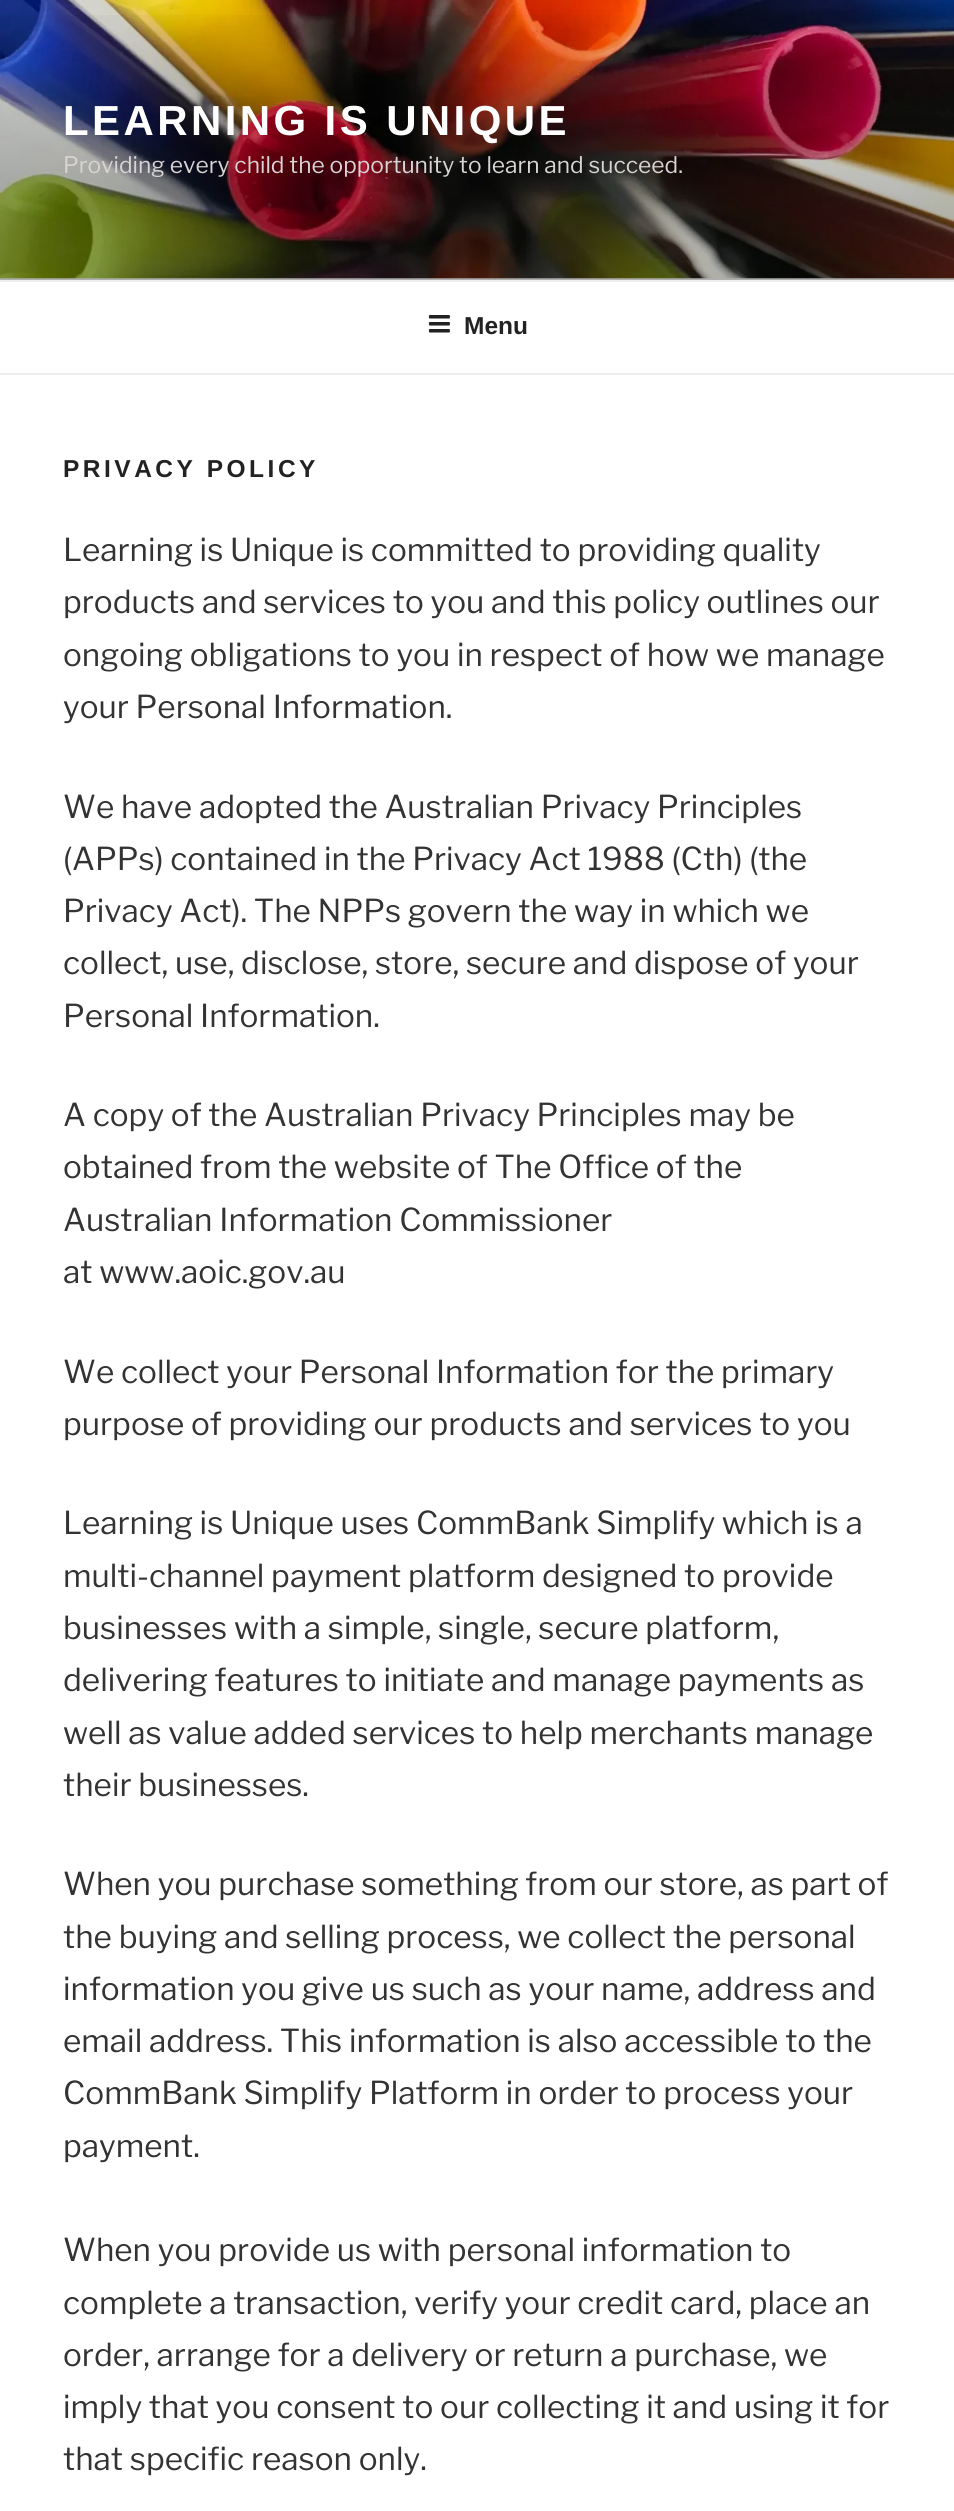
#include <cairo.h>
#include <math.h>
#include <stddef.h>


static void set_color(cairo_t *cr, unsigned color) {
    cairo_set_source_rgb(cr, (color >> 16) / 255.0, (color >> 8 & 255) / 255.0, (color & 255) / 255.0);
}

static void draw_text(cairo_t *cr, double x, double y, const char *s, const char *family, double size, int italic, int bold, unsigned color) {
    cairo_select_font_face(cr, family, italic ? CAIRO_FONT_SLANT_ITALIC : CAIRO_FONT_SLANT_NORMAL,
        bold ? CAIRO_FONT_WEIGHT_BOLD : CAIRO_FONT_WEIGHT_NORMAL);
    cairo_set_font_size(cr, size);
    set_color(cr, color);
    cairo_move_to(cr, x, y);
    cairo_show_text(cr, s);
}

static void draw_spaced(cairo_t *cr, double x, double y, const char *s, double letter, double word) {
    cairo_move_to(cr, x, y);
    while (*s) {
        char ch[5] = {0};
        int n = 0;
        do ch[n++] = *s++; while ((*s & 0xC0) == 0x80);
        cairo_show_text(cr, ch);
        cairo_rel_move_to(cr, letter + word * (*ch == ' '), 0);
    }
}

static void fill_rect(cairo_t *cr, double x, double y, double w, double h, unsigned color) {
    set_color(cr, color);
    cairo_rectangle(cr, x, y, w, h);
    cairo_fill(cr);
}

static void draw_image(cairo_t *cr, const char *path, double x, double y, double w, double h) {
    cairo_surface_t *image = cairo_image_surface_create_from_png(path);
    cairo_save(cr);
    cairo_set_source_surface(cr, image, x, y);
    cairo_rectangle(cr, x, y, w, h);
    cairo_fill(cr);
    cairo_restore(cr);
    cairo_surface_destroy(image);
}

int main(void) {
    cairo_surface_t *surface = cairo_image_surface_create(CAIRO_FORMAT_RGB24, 954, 2511);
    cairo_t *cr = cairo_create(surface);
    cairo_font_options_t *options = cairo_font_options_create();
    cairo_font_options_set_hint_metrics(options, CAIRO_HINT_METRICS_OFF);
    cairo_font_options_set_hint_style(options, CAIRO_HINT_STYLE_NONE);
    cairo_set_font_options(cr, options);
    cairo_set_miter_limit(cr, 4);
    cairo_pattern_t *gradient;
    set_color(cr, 0xFFFFFF);
    cairo_paint(cr);
    fill_rect(cr, 0, 278, 954, 2, 0xFAFAFA);
    draw_image(cr, "assets/img1.png", 0, 0, 954, 279);
    gradient = cairo_pattern_create_linear(478, 0, 478, 280);
    cairo_pattern_add_color_stop_rgba(gradient, 0, 0, 0, 0, 0);
    cairo_pattern_add_color_stop_rgba(gradient, 0.75, 0, 0, 0, 0.3);
    cairo_pattern_add_color_stop_rgba(gradient, 1, 0, 0, 0, 0.3);
    cairo_set_source(cr, gradient);
    cairo_pattern_destroy(gradient);
    cairo_rectangle(cr, 0, 15, 954, 265);
    cairo_fill(cr);
    cairo_select_font_face(cr, "Liberation Sans", CAIRO_FONT_SLANT_NORMAL, CAIRO_FONT_WEIGHT_BOLD);
    cairo_set_font_size(cr, 42);
    set_color(cr, 0xFFFFFF);
    draw_spaced(cr, 63, 135, "LEARNING IS UNIQUE", 3.4, 0);
    draw_text(cr, 63, 173, "Providing every child the opportunity to learn and succeed.", "Libre Franklin Thin", 22.75, 0, 0, 0xD8D3D4);
    fill_rect(cr, 0, 280, 954, 2, 0xEEEEEE);
    fill_rect(cr, 0, 373, 954, 2, 0xEEEEEE);
    draw_image(cr, "assets/img2.png", 428, 315, 22, 18);
    draw_text(cr, 464, 334, "Menu", "Liberation Sans", 24.5, 0, 1, 0x222222);
    draw_spaced(cr, 63, 477, "PRIVACY POLICY", 3.5, 0);
    draw_text(cr, 63, 561, "Learning is Unique is committed to providing quality", "Libre Franklin Thin", 31.5, 0, 0, 0x333333);
    draw_text(cr, 63, 613, "products and services to you and this policy outlines our", "Libre Franklin Thin", 31.5, 0, 0, 0x333333);
    draw_text(cr, 63, 666, "ongoing obligations to you in respect of how we manage", "Libre Franklin Thin", 31.5, 0, 0, 0x333333);
    draw_text(cr, 63, 718, "your Personal Information.", "Libre Franklin Thin", 31.5, 0, 0, 0x333333);
    draw_text(cr, 63, 818, "We have adopted the Australian Privacy Principles", "Libre Franklin Thin", 31.5, 0, 0, 0x333333);
    draw_text(cr, 63, 870, "(APPs) contained in the Privacy Act 1988 (Cth) (the", "Libre Franklin Thin", 31.5, 0, 0, 0x333333);
    draw_text(cr, 63, 922, "Privacy Act). The NPPs govern the way in which we", "Libre Franklin Thin", 31.5, 0, 0, 0x333333);
    draw_text(cr, 63, 974, "collect, use, disclose, store, secure and dispose of your", "Libre Franklin Thin", 31.5, 0, 0, 0x333333);
    draw_text(cr, 63, 1027, "Personal Information.", "Libre Franklin Thin", 31.5, 0, 0, 0x333333);
    draw_text(cr, 63, 1126, "A copy of the Australian Privacy Principles may be", "Libre Franklin Thin", 31.5, 0, 0, 0x333333);
    draw_text(cr, 63, 1178, "obtained from the website of The Office of the", "Libre Franklin Thin", 31.5, 0, 0, 0x333333);
    draw_text(cr, 63, 1231, "Australian Information Commissioner", "Libre Franklin Thin", 31.5, 0, 0, 0x333333);
    draw_text(cr, 63, 1283, "at www.aoic.gov.au", "Libre Franklin Thin", 31.5, 0, 0, 0x333333);
    draw_text(cr, 63, 1383, "We collect your Personal Information for the primary", "Libre Franklin Thin", 31.5, 0, 0, 0x333333);
    draw_text(cr, 63, 1435, "purpose of providing our products and services to you", "Libre Franklin Thin", 31.5, 0, 0, 0x333333);
    draw_text(cr, 63, 1534, "Learning is Unique uses CommBank Simplify which is a", "Libre Franklin Thin", 31.5, 0, 0, 0x333333);
    draw_text(cr, 63, 1587, "multi-channel payment platform designed to provide", "Libre Franklin Thin", 31.5, 0, 0, 0x333333);
    draw_text(cr, 63, 1639, "businesses with a simple, single, secure platform,", "Libre Franklin Thin", 31.5, 0, 0, 0x333333);
    draw_text(cr, 63, 1691, "delivering features to initiate and manage payments as", "Libre Franklin Thin", 31.5, 0, 0, 0x333333);
    draw_text(cr, 63, 1744, "well as value added services to help merchants manage", "Libre Franklin Thin", 31.5, 0, 0, 0x333333);
    draw_text(cr, 63, 1796, "their businesses.", "Libre Franklin Thin", 31.5, 0, 0, 0x333333);
    draw_text(cr, 63, 1895, "When you purchase something from our store, as part of", "Libre Franklin Thin", 31.5, 0, 0, 0x333333);
    draw_text(cr, 63, 1948, "the buying and selling process, we collect the personal", "Libre Franklin Thin", 31.5, 0, 0, 0x333333);
    draw_text(cr, 63, 2000, "information you give us such as your name, address and", "Libre Franklin Thin", 31.5, 0, 0, 0x333333);
    draw_text(cr, 63, 2052, "email address. This information is also accessible to the", "Libre Franklin Thin", 31.5, 0, 0, 0x333333);
    draw_text(cr, 63, 2104, "CommBank Simplify Platform in order to process your", "Libre Franklin Thin", 31.5, 0, 0, 0x333333);
    draw_text(cr, 63, 2157, "payment.", "Libre Franklin Thin", 31.5, 0, 0, 0x333333);
    draw_text(cr, 63, 2261, "When you provide us with personal information to", "Libre Franklin Thin", 31.5, 0, 0, 0x333333);
    draw_text(cr, 63, 2314, "complete a transaction, verify your credit card, place an", "Libre Franklin Thin", 31.5, 0, 0, 0x333333);
    draw_text(cr, 63, 2366, "order, arrange for a delivery or return a purchase, we", "Libre Franklin Thin", 31.5, 0, 0, 0x333333);
    draw_text(cr, 63, 2418, "imply that you consent to our collecting it and using it for", "Libre Franklin Thin", 31.5, 0, 0, 0x333333);
    draw_text(cr, 63, 2470, "that specific reason only.", "Libre Franklin Thin", 31.5, 0, 0, 0x333333);
    cairo_surface_write_to_png(surface, "output.png");
    cairo_font_options_destroy(options);
    cairo_destroy(cr);
    cairo_surface_destroy(surface);
    return 0;
}
